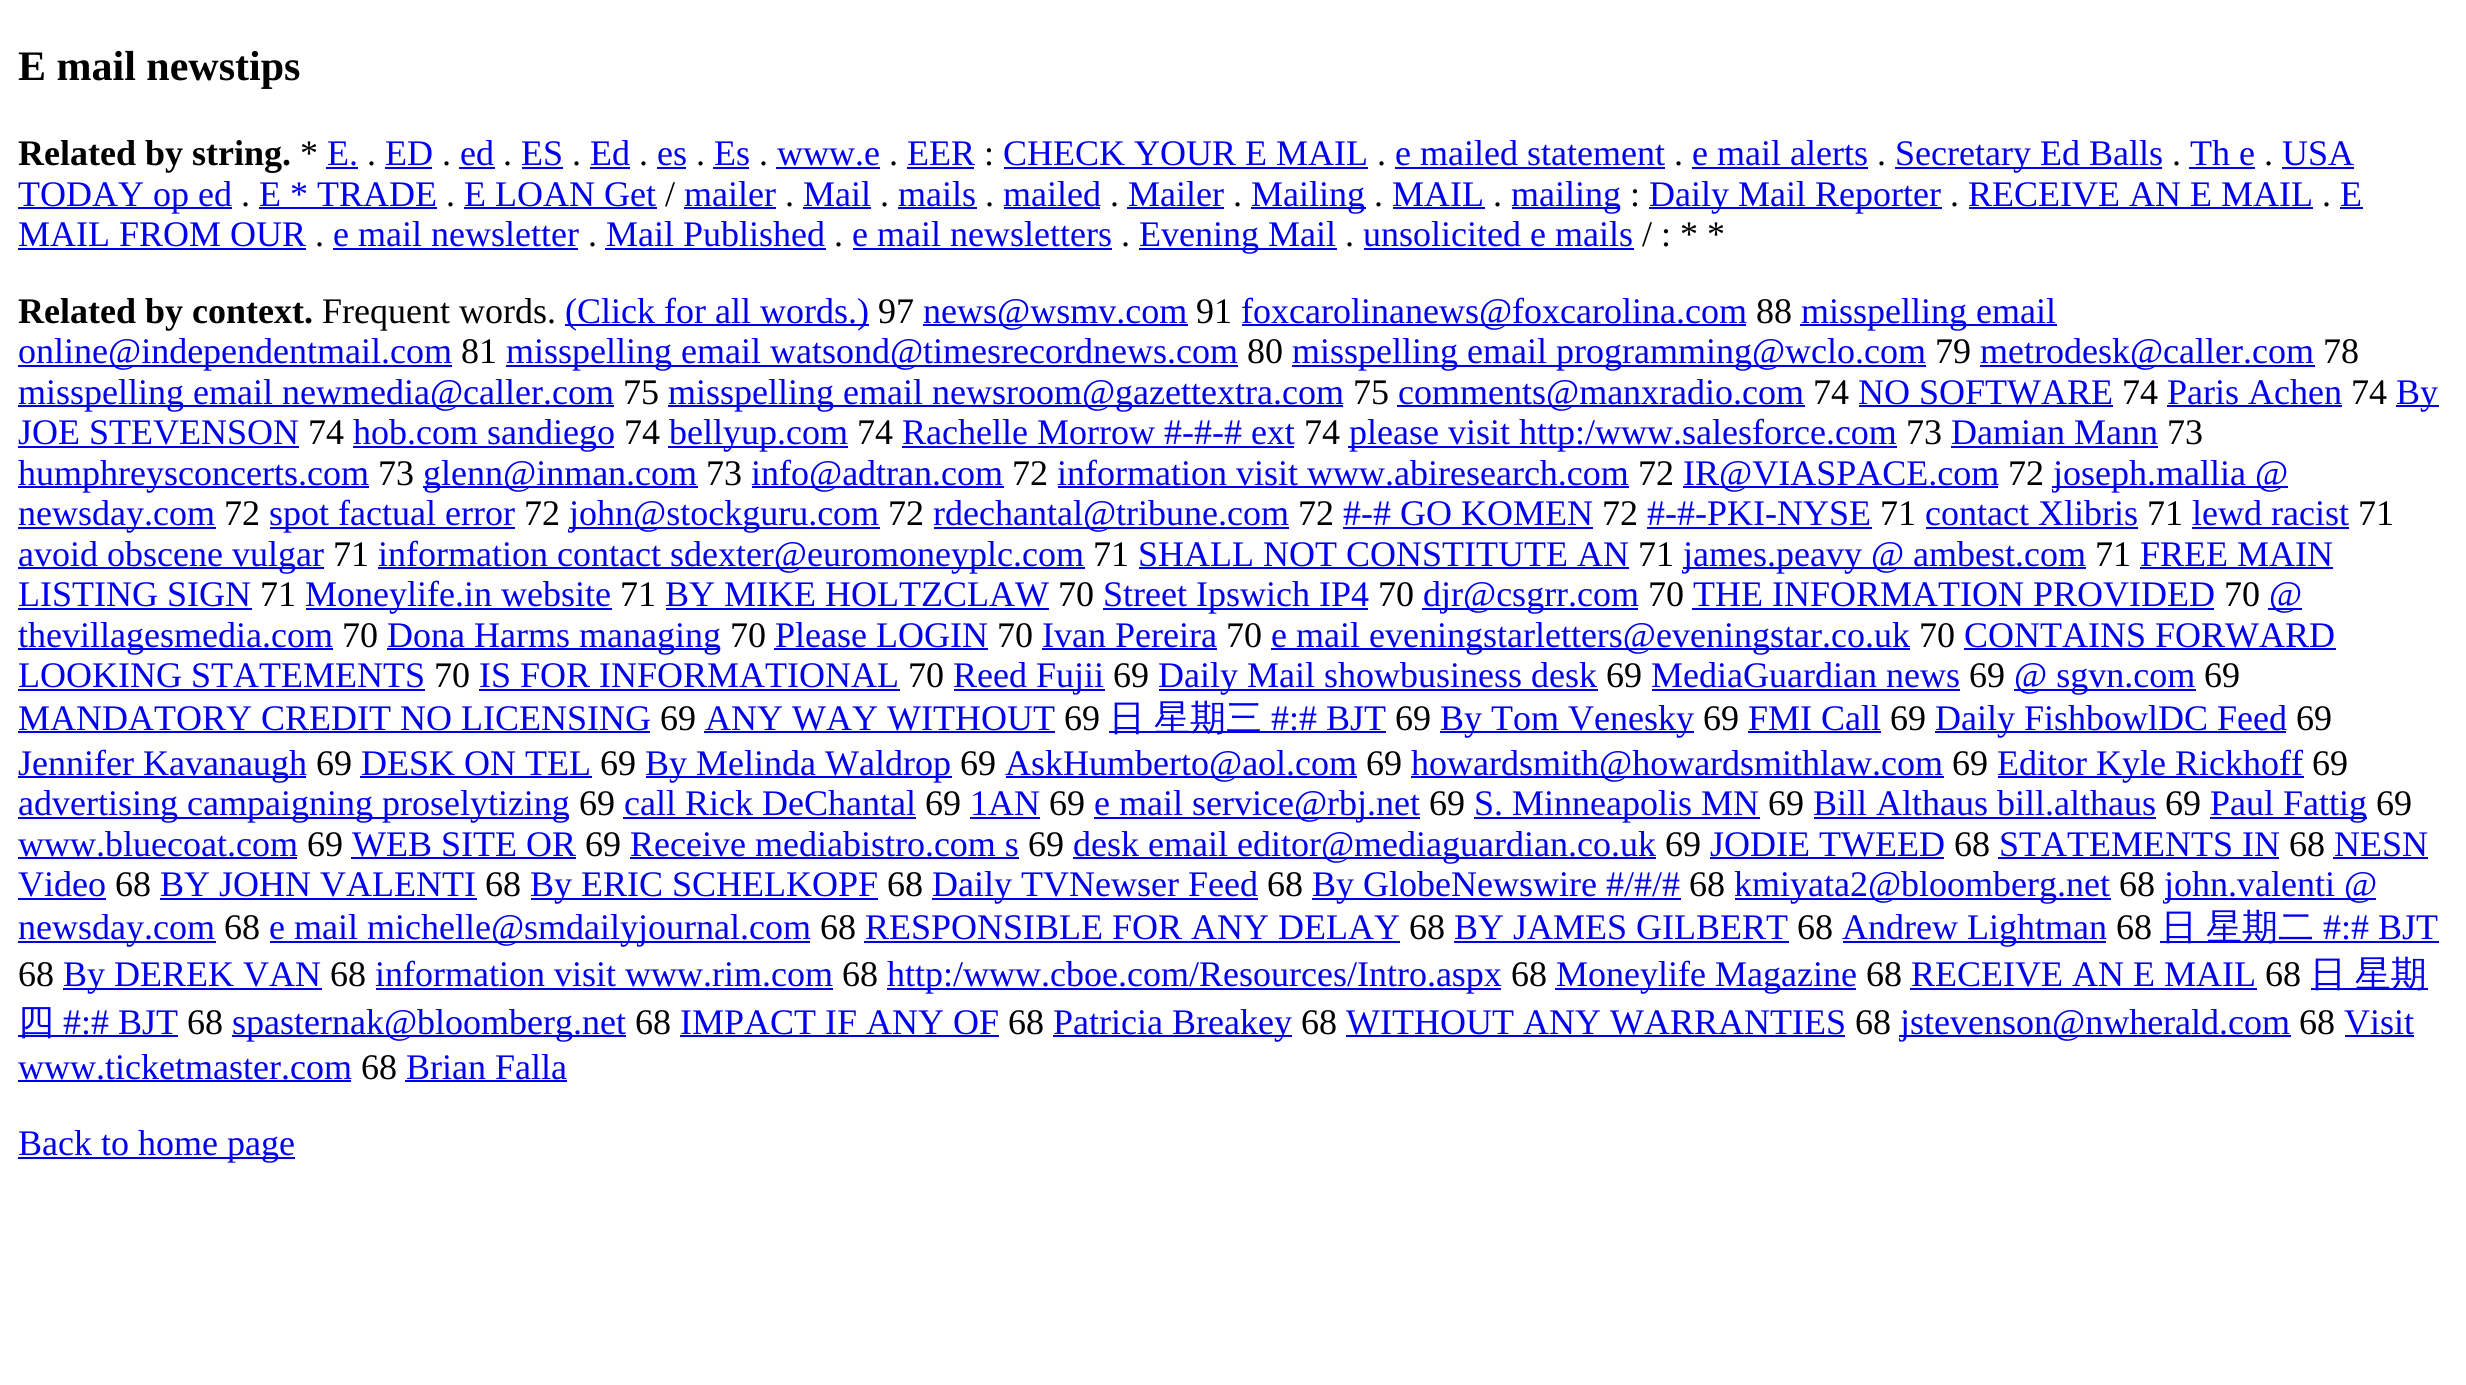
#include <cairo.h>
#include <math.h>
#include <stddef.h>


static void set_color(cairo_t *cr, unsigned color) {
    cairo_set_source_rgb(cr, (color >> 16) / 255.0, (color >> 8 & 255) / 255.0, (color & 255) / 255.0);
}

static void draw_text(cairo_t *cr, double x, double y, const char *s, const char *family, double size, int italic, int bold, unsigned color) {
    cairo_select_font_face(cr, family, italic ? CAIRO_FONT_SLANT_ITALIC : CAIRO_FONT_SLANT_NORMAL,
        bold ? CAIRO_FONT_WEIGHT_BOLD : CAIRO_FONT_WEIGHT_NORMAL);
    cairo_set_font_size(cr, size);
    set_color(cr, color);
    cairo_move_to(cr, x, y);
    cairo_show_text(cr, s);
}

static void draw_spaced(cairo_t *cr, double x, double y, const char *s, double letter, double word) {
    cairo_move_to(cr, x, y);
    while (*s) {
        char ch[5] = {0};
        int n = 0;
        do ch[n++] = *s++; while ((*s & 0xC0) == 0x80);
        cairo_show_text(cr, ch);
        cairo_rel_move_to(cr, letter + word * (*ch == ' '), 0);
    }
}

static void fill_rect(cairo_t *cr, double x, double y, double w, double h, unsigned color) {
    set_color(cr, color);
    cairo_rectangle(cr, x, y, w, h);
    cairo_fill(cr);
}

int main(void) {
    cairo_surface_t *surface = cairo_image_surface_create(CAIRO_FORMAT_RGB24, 2466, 1385);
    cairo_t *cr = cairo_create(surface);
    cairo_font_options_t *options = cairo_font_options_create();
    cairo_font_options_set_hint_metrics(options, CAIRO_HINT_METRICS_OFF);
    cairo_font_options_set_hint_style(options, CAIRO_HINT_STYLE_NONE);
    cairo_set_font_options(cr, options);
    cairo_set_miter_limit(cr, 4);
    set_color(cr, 0xFFFFFF);
    cairo_paint(cr);
    draw_text(cr, 18, 80, "E mail newstips", "Liberation Serif", 42, 0, 1, 0x000000);
    draw_text(cr, 18, 165, "Related by string.", "Liberation Serif", 36, 0, 1, 0x000000);
    draw_text(cr, 300, 165, "*", "Liberation Serif", 36, 0, 0, 0x000000);
    draw_text(cr, 327, 165, "E.", "Liberation Serif", 36, 0, 0, 0x0000EE);
    fill_rect(cr, 326, 167, 32, 2, 0x0000EE);
    draw_text(cr, 367, 165, ".", "Liberation Serif", 36, 0, 0, 0x000000);
    draw_text(cr, 385, 165, "ED", "Liberation Serif", 36, 0, 0, 0x0000EE);
    fill_rect(cr, 385, 167, 47, 2, 0x0000EE);
    draw_text(cr, 442, 165, ".", "Liberation Serif", 36, 0, 0, 0x000000);
    draw_text(cr, 460, 165, "ed", "Liberation Serif", 36, 0, 0, 0x0000EE);
    fill_rect(cr, 459, 167, 36, 2, 0x0000EE);
    draw_text(cr, 503, 165, ".", "Liberation Serif", 36, 0, 0, 0x000000);
    draw_text(cr, 521, 165, "ES", "Liberation Serif", 36, 0, 0, 0x0000EE);
    fill_rect(cr, 522, 167, 41, 2, 0x0000EE);
    draw_text(cr, 572, 165, ".", "Liberation Serif", 36, 0, 0, 0x000000);
    draw_text(cr, 590, 165, "Ed", "Liberation Serif", 36, 0, 0, 0x0000EE);
    fill_rect(cr, 590, 167, 40, 2, 0x0000EE);
    draw_text(cr, 639, 165, ".", "Liberation Serif", 36, 0, 0, 0x000000);
    draw_text(cr, 657, 165, "es", "Liberation Serif", 36, 0, 0, 0x0000EE);
    fill_rect(cr, 657, 167, 29, 2, 0x0000EE);
    draw_text(cr, 696, 165, ".", "Liberation Serif", 36, 0, 0, 0x000000);
    draw_text(cr, 714, 165, "Es", "Liberation Serif", 36, 0, 0, 0x0000EE);
    fill_rect(cr, 713, 167, 36, 2, 0x0000EE);
    draw_text(cr, 759, 165, ".", "Liberation Serif", 36, 0, 0, 0x000000);
    draw_text(cr, 777, 165, "www.e", "Liberation Serif", 36, 0, 0, 0x0000EE);
    fill_rect(cr, 776, 167, 104, 2, 0x0000EE);
    draw_text(cr, 889, 165, ".", "Liberation Serif", 36, 0, 0, 0x000000);
    draw_text(cr, 907, 165, "EER", "Liberation Serif", 36, 0, 0, 0x0000EE);
    fill_rect(cr, 907, 167, 67, 2, 0x0000EE);
    draw_text(cr, 984, 165, ":", "Liberation Serif", 36, 0, 0, 0x000000);
    draw_text(cr, 1003, 165, "CHECK YOUR E MAIL", "Liberation Serif", 36, 0, 0, 0x0000EE);
    fill_rect(cr, 1004, 167, 364, 2, 0x0000EE);
    draw_text(cr, 1377, 165, ".", "Liberation Serif", 36, 0, 0, 0x000000);
    draw_text(cr, 1395, 165, "e mailed statement", "Liberation Serif", 36, 0, 0, 0x0000EE);
    fill_rect(cr, 1395, 167, 270, 2, 0x0000EE);
    draw_text(cr, 1674, 165, ".", "Liberation Serif", 36, 0, 0, 0x000000);
    draw_text(cr, 1692, 165, "e mail alerts", "Liberation Serif", 36, 0, 0, 0x0000EE);
    fill_rect(cr, 1692, 167, 176, 2, 0x0000EE);
    draw_text(cr, 1877, 165, ".", "Liberation Serif", 36, 0, 0, 0x000000);
    fill_rect(cr, 1895, 167, 267, 2, 0x0000EE);
    draw_text(cr, 1895, 165, "Secretary Ed Balls", "Liberation Serif", 36, 0, 0, 0x0000EE);
    draw_text(cr, 2172, 165, ".", "Liberation Serif", 36, 0, 0, 0x000000);
    draw_text(cr, 2190, 165, "Th e", "Liberation Serif", 36, 0, 0, 0x0000EE);
    fill_rect(cr, 2189, 167, 66, 2, 0x0000EE);
    draw_text(cr, 2264, 165, ".", "Liberation Serif", 36, 0, 0, 0x000000);
    draw_text(cr, 2282, 165, "USA", "Liberation Serif", 36, 0, 0, 0x0000EE);
    fill_rect(cr, 2282, 167, 72, 2, 0x0000EE);
    fill_rect(cr, 18, 207, 214, 2, 0x0000EE);
    draw_text(cr, 18, 206, "TODAY op ed", "Liberation Serif", 36, 0, 0, 0x0000EE);
    draw_text(cr, 241, 206, ".", "Liberation Serif", 36, 0, 0, 0x000000);
    draw_text(cr, 259, 206, "E * TRADE", "Liberation Serif", 36, 0, 0, 0x0000EE);
    fill_rect(cr, 259, 207, 178, 2, 0x0000EE);
    draw_text(cr, 446, 206, ".", "Liberation Serif", 36, 0, 0, 0x000000);
    draw_text(cr, 464, 206, "E LOAN Get", "Liberation Serif", 36, 0, 0, 0x0000EE);
    fill_rect(cr, 464, 207, 193, 2, 0x0000EE);
    draw_text(cr, 665, 206, "/", "Liberation Serif", 36, 0, 0, 0x000000);
    draw_text(cr, 684, 206, "mailer", "Liberation Serif", 36, 0, 0, 0x0000EE);
    fill_rect(cr, 684, 207, 92, 2, 0x0000EE);
    draw_text(cr, 785, 206, ".", "Liberation Serif", 36, 0, 0, 0x000000);
    draw_text(cr, 803, 206, "Mail", "Liberation Serif", 36, 0, 0, 0x0000EE);
    fill_rect(cr, 803, 207, 68, 2, 0x0000EE);
    draw_text(cr, 880, 206, ".", "Liberation Serif", 36, 0, 0, 0x000000);
    draw_text(cr, 898, 206, "mails", "Liberation Serif", 36, 0, 0, 0x0000EE);
    fill_rect(cr, 898, 207, 79, 2, 0x0000EE);
    draw_text(cr, 985, 206, ".", "Liberation Serif", 36, 0, 0, 0x000000);
    draw_text(cr, 1003, 206, "mailed", "Liberation Serif", 36, 0, 0, 0x0000EE);
    fill_rect(cr, 1004, 207, 96, 2, 0x0000EE);
    draw_text(cr, 1110, 206, ".", "Liberation Serif", 36, 0, 0, 0x000000);
    draw_text(cr, 1128, 206, "Mailer", "Liberation Serif", 36, 0, 0, 0x0000EE);
    fill_rect(cr, 1127, 207, 97, 2, 0x0000EE);
    draw_text(cr, 1233, 206, ".", "Liberation Serif", 36, 0, 0, 0x000000);
    fill_rect(cr, 1251, 207, 115, 2, 0x0000EE);
    draw_text(cr, 1251, 206, "Mailing", "Liberation Serif", 36, 0, 0, 0x0000EE);
    draw_text(cr, 1374, 206, ".", "Liberation Serif", 36, 0, 0, 0x000000);
    draw_text(cr, 1392, 206, "MAIL", "Liberation Serif", 36, 0, 0, 0x0000EE);
    fill_rect(cr, 1393, 207, 92, 2, 0x0000EE);
    draw_text(cr, 1493, 206, ".", "Liberation Serif", 36, 0, 0, 0x000000);
    fill_rect(cr, 1512, 207, 108, 2, 0x0000EE);
    draw_text(cr, 1511, 206, "mailing", "Liberation Serif", 36, 0, 0, 0x0000EE);
    draw_text(cr, 1630, 206, ":", "Liberation Serif", 36, 0, 0, 0x000000);
    fill_rect(cr, 1649, 207, 293, 2, 0x0000EE);
    draw_text(cr, 1649, 206, "Daily Mail Reporter", "Liberation Serif", 36, 0, 0, 0x0000EE);
    draw_text(cr, 1950, 206, ".", "Liberation Serif", 36, 0, 0, 0x000000);
    draw_text(cr, 1968, 206, "RECEIVE AN E MAIL", "Liberation Serif", 36, 0, 0, 0x0000EE);
    fill_rect(cr, 1969, 207, 344, 2, 0x0000EE);
    draw_text(cr, 2322, 206, ".", "Liberation Serif", 36, 0, 0, 0x000000);
    draw_text(cr, 2340, 206, "E", "Liberation Serif", 36, 0, 0, 0x0000EE);
    fill_rect(cr, 2340, 207, 23, 2, 0x0000EE);
    draw_text(cr, 18, 246, "MAIL FROM OUR", "Liberation Serif", 36, 0, 0, 0x0000EE);
    fill_rect(cr, 18, 248, 288, 2, 0x0000EE);
    draw_text(cr, 315, 246, ".", "Liberation Serif", 36, 0, 0, 0x000000);
    draw_text(cr, 333, 246, "e mail newsletter", "Liberation Serif", 36, 0, 0, 0x0000EE);
    fill_rect(cr, 333, 248, 245, 2, 0x0000EE);
    draw_text(cr, 588, 246, ".", "Liberation Serif", 36, 0, 0, 0x000000);
    draw_text(cr, 606, 246, "Mail Published", "Liberation Serif", 36, 0, 0, 0x0000EE);
    fill_rect(cr, 605, 248, 221, 2, 0x0000EE);
    draw_text(cr, 834, 246, ".", "Liberation Serif", 36, 0, 0, 0x000000);
    draw_text(cr, 852, 246, "e mail newsletters", "Liberation Serif", 36, 0, 0, 0x0000EE);
    fill_rect(cr, 853, 248, 259, 2, 0x0000EE);
    draw_text(cr, 1121, 246, ".", "Liberation Serif", 36, 0, 0, 0x000000);
    fill_rect(cr, 1139, 248, 198, 2, 0x0000EE);
    draw_text(cr, 1139, 246, "Evening Mail", "Liberation Serif", 36, 0, 0, 0x0000EE);
    draw_text(cr, 1345, 246, ".", "Liberation Serif", 36, 0, 0, 0x000000);
    draw_text(cr, 1363, 246, "unsolicited e mails", "Liberation Serif", 36, 0, 0, 0x0000EE);
    fill_rect(cr, 1364, 248, 270, 2, 0x0000EE);
    draw_text(cr, 1642, 246, "/ : * *", "Liberation Serif", 36, 0, 0, 0x000000);
    draw_text(cr, 18, 323, "Related by context.", "Liberation Serif", 36, 0, 1, 0x000000);
    draw_text(cr, 322, 323, "Frequent words.", "Liberation Serif", 36, 0, 0, 0x000000);
    fill_rect(cr, 565, 324, 304, 2, 0x0000EE);
    draw_text(cr, 565, 323, "(Click for all words.)", "Liberation Serif", 36, 0, 0, 0x0000EE);
    draw_text(cr, 878, 323, "97", "Liberation Serif", 36, 0, 0, 0x000000);
    fill_rect(cr, 923, 324, 265, 2, 0x0000EE);
    draw_text(cr, 923, 323, "news@wsmv.com", "Liberation Serif", 36, 0, 0, 0x0000EE);
    draw_text(cr, 1196, 323, "91", "Liberation Serif", 36, 0, 0, 0x000000);
    fill_rect(cr, 1242, 324, 504, 2, 0x0000EE);
    draw_text(cr, 1241, 323, "foxcarolinanews@foxcarolina.com", "Liberation Serif", 36, 0, 0, 0x0000EE);
    draw_text(cr, 1756, 323, "88", "Liberation Serif", 36, 0, 0, 0x000000);
    fill_rect(cr, 1800, 324, 257, 2, 0x0000EE);
    draw_text(cr, 1801, 323, "misspelling email", "Liberation Serif", 36, 0, 0, 0x0000EE);
    fill_rect(cr, 18, 365, 434, 2, 0x0000EE);
    draw_text(cr, 18, 363, "online@independentmail.com", "Liberation Serif", 36, 0, 0, 0x0000EE);
    draw_text(cr, 461, 363, "81", "Liberation Serif", 36, 0, 0, 0x000000);
    fill_rect(cr, 506, 365, 732, 2, 0x0000EE);
    draw_text(cr, 506, 363, "misspelling email watsond@timesrecordnews.com", "Liberation Serif", 36, 0, 0, 0x0000EE);
    draw_text(cr, 1247, 363, "80", "Liberation Serif", 36, 0, 0, 0x000000);
    fill_rect(cr, 1292, 365, 634, 2, 0x0000EE);
    draw_text(cr, 1292, 363, "misspelling email programming@wclo.com", "Liberation Serif", 36, 0, 0, 0x0000EE);
    draw_text(cr, 1935, 363, "79", "Liberation Serif", 36, 0, 0, 0x000000);
    fill_rect(cr, 1980, 365, 335, 2, 0x0000EE);
    draw_text(cr, 1980, 363, "metrodesk@caller.com", "Liberation Serif", 36, 0, 0, 0x0000EE);
    draw_text(cr, 2323, 363, "78", "Liberation Serif", 36, 0, 0, 0x000000);
    fill_rect(cr, 18, 405, 596, 2, 0x0000EE);
    draw_text(cr, 18, 404, "misspelling email newmedia@caller.com", "Liberation Serif", 36, 0, 0, 0x0000EE);
    draw_text(cr, 623, 404, "75", "Liberation Serif", 36, 0, 0, 0x000000);
    fill_rect(cr, 668, 405, 675, 2, 0x0000EE);
    draw_text(cr, 668, 404, "misspelling email newsroom@gazettextra.com", "Liberation Serif", 36, 0, 0, 0x0000EE);
    draw_text(cr, 1353, 404, "75", "Liberation Serif", 36, 0, 0, 0x000000);
    fill_rect(cr, 1397, 405, 408, 2, 0x0000EE);
    draw_text(cr, 1398, 404, "comments@manxradio.com", "Liberation Serif", 36, 0, 0, 0x0000EE);
    draw_text(cr, 1813, 404, "74", "Liberation Serif", 36, 0, 0, 0x000000);
    draw_text(cr, 1858, 404, "NO SOFTWARE", "Liberation Serif", 36, 0, 0, 0x0000EE);
    fill_rect(cr, 1859, 405, 254, 2, 0x0000EE);
    draw_text(cr, 2122, 404, "74", "Liberation Serif", 36, 0, 0, 0x000000);
    draw_text(cr, 2167, 404, "Paris Achen", "Liberation Serif", 36, 0, 0, 0x0000EE);
    fill_rect(cr, 2167, 405, 175, 2, 0x0000EE);
    draw_text(cr, 2351, 404, "74", "Liberation Serif", 36, 0, 0, 0x000000);
    fill_rect(cr, 2396, 405, 43, 2, 0x0000EE);
    draw_text(cr, 2396, 404, "By", "Liberation Serif", 36, 0, 0, 0x0000EE);
    draw_text(cr, 18, 444, "JOE STEVENSON", "Liberation Serif", 36, 0, 0, 0x0000EE);
    fill_rect(cr, 18, 446, 281, 2, 0x0000EE);
    draw_text(cr, 308, 444, "74", "Liberation Serif", 36, 0, 0, 0x000000);
    fill_rect(cr, 353, 446, 261, 2, 0x0000EE);
    draw_text(cr, 353, 444, "hob.com sandiego", "Liberation Serif", 36, 0, 0, 0x0000EE);
    draw_text(cr, 624, 444, "74", "Liberation Serif", 36, 0, 0, 0x000000);
    fill_rect(cr, 668, 446, 180, 2, 0x0000EE);
    draw_text(cr, 669, 444, "bellyup.com", "Liberation Serif", 36, 0, 0, 0x0000EE);
    draw_text(cr, 857, 444, "74", "Liberation Serif", 36, 0, 0, 0x000000);
    draw_text(cr, 902, 444, "Rachelle Morrow #-#-# ext", "Liberation Serif", 36, 0, 0, 0x0000EE);
    fill_rect(cr, 902, 446, 392, 2, 0x0000EE);
    draw_text(cr, 1304, 444, "74", "Liberation Serif", 36, 0, 0, 0x000000);
    fill_rect(cr, 1348, 446, 549, 2, 0x0000EE);
    draw_text(cr, 1349, 444, "please visit http:/www.salesforce.com", "Liberation Serif", 36, 0, 0, 0x0000EE);
    draw_text(cr, 1906, 444, "73", "Liberation Serif", 36, 0, 0, 0x000000);
    draw_text(cr, 1951, 444, "Damian Mann", "Liberation Serif", 36, 0, 0, 0x0000EE);
    fill_rect(cr, 1951, 446, 207, 2, 0x0000EE);
    draw_text(cr, 2167, 444, "73", "Liberation Serif", 36, 0, 0, 0x000000);
    fill_rect(cr, 18, 486, 351, 2, 0x0000EE);
    draw_text(cr, 18, 485, "humphreysconcerts.com", "Liberation Serif", 36, 0, 0, 0x0000EE);
    draw_text(cr, 378, 485, "73", "Liberation Serif", 36, 0, 0, 0x000000);
    fill_rect(cr, 423, 486, 275, 2, 0x0000EE);
    draw_text(cr, 423, 485, "glenn@inman.com", "Liberation Serif", 36, 0, 0, 0x0000EE);
    draw_text(cr, 706, 485, "73", "Liberation Serif", 36, 0, 0, 0x000000);
    fill_rect(cr, 752, 486, 252, 2, 0x0000EE);
    draw_text(cr, 751, 485, "info@adtran.com", "Liberation Serif", 36, 0, 0, 0x0000EE);
    draw_text(cr, 1012, 485, "72", "Liberation Serif", 36, 0, 0, 0x000000);
    draw_text(cr, 1057, 485, "information visit www.abiresearch.com", "Liberation Serif", 36, 0, 0, 0x0000EE);
    fill_rect(cr, 1058, 486, 571, 2, 0x0000EE);
    draw_text(cr, 1638, 485, "72", "Liberation Serif", 36, 0, 0, 0x000000);
    fill_rect(cr, 1683, 486, 315, 2, 0x0000EE);
    draw_text(cr, 1683, 485, "IR@VIASPACE.com", "Liberation Serif", 36, 0, 0, 0x0000EE);
    draw_text(cr, 2008, 485, "72", "Liberation Serif", 36, 0, 0, 0x000000);
    fill_rect(cr, 2052, 486, 236, 2, 0x0000EE);
    draw_text(cr, 2053, 485, "joseph.mallia @", "Liberation Serif", 36, 0, 0, 0x0000EE);
    fill_rect(cr, 18, 527, 198, 2, 0x0000EE);
    draw_text(cr, 18, 525, "newsday.com", "Liberation Serif", 36, 0, 0, 0x0000EE);
    draw_text(cr, 224, 525, "72", "Liberation Serif", 36, 0, 0, 0x000000);
    fill_rect(cr, 270, 527, 245, 2, 0x0000EE);
    draw_text(cr, 269, 525, "spot factual error", "Liberation Serif", 36, 0, 0, 0x0000EE);
    draw_text(cr, 524, 525, "72", "Liberation Serif", 36, 0, 0, 0x000000);
    fill_rect(cr, 569, 527, 311, 2, 0x0000EE);
    draw_text(cr, 569, 525, "john@stockguru.com", "Liberation Serif", 36, 0, 0, 0x0000EE);
    draw_text(cr, 888, 525, "72", "Liberation Serif", 36, 0, 0, 0x000000);
    fill_rect(cr, 934, 527, 355, 2, 0x0000EE);
    draw_text(cr, 933, 525, "rdechantal@tribune.com", "Liberation Serif", 36, 0, 0, 0x0000EE);
    draw_text(cr, 1298, 525, "72", "Liberation Serif", 36, 0, 0, 0x000000);
    draw_text(cr, 1343, 525, "#-# GO KOMEN", "Liberation Serif", 36, 0, 0, 0x0000EE);
    fill_rect(cr, 1343, 527, 250, 2, 0x0000EE);
    draw_text(cr, 1602, 525, "72", "Liberation Serif", 36, 0, 0, 0x000000);
    draw_text(cr, 1647, 525, "#-#-PKI-NYSE", "Liberation Serif", 36, 0, 0, 0x0000EE);
    fill_rect(cr, 1647, 527, 225, 2, 0x0000EE);
    draw_text(cr, 1880, 525, "71", "Liberation Serif", 36, 0, 0, 0x000000);
    draw_text(cr, 1925, 525, "contact Xlibris", "Liberation Serif", 36, 0, 0, 0x0000EE);
    fill_rect(cr, 1926, 527, 212, 2, 0x0000EE);
    draw_text(cr, 2147, 525, "71", "Liberation Serif", 36, 0, 0, 0x000000);
    draw_text(cr, 2192, 525, "lewd racist", "Liberation Serif", 36, 0, 0, 0x0000EE);
    fill_rect(cr, 2192, 527, 157, 2, 0x0000EE);
    draw_text(cr, 2358, 525, "71", "Liberation Serif", 36, 0, 0, 0x000000);
    fill_rect(cr, 18, 567, 306, 2, 0x0000EE);
    draw_text(cr, 18, 566, "avoid obscene vulgar", "Liberation Serif", 36, 0, 0, 0x0000EE);
    draw_text(cr, 333, 566, "71", "Liberation Serif", 36, 0, 0, 0x000000);
    fill_rect(cr, 378, 567, 707, 2, 0x0000EE);
    draw_text(cr, 378, 566, "information contact sdexter@euromoneyplc.com", "Liberation Serif", 36, 0, 0, 0x0000EE);
    draw_text(cr, 1093, 566, "71", "Liberation Serif", 36, 0, 0, 0x000000);
    draw_text(cr, 1138, 566, "SHALL NOT CONSTITUTE AN", "Liberation Serif", 36, 0, 0, 0x0000EE);
    fill_rect(cr, 1139, 567, 490, 2, 0x0000EE);
    draw_text(cr, 1638, 566, "71", "Liberation Serif", 36, 0, 0, 0x000000);
    fill_rect(cr, 1683, 567, 403, 2, 0x0000EE);
    draw_text(cr, 1683, 566, "james.peavy @ ambest.com", "Liberation Serif", 36, 0, 0, 0x0000EE);
    draw_text(cr, 2095, 566, "71", "Liberation Serif", 36, 0, 0, 0x000000);
    draw_text(cr, 2140, 566, "FREE MAIN", "Liberation Serif", 36, 0, 0, 0x0000EE);
    fill_rect(cr, 2140, 567, 193, 2, 0x0000EE);
    draw_text(cr, 18, 606, "LISTING SIGN", "Liberation Serif", 36, 0, 0, 0x0000EE);
    fill_rect(cr, 18, 608, 234, 2, 0x0000EE);
    draw_text(cr, 260, 606, "71", "Liberation Serif", 36, 0, 0, 0x000000);
    fill_rect(cr, 306, 608, 306, 2, 0x0000EE);
    draw_text(cr, 305, 606, "Moneylife.in website", "Liberation Serif", 36, 0, 0, 0x0000EE);
    draw_text(cr, 620, 606, "71", "Liberation Serif", 36, 0, 0, 0x000000);
    draw_text(cr, 665, 606, "BY MIKE HOLTZCLAW", "Liberation Serif", 36, 0, 0, 0x0000EE);
    fill_rect(cr, 666, 608, 383, 2, 0x0000EE);
    draw_text(cr, 1058, 606, "70", "Liberation Serif", 36, 0, 0, 0x000000);
    fill_rect(cr, 1103, 608, 265, 2, 0x0000EE);
    draw_text(cr, 1103, 606, "Street Ipswich IP4", "Liberation Serif", 36, 0, 0, 0x0000EE);
    draw_text(cr, 1378, 606, "70", "Liberation Serif", 36, 0, 0, 0x000000);
    fill_rect(cr, 1422, 608, 216, 2, 0x0000EE);
    draw_text(cr, 1423, 606, "djr@csgrr.com", "Liberation Serif", 36, 0, 0, 0x0000EE);
    draw_text(cr, 1648, 606, "70", "Liberation Serif", 36, 0, 0, 0x000000);
    draw_text(cr, 1693, 606, "THE INFORMATION PROVIDED", "Liberation Serif", 36, 0, 0, 0x0000EE);
    fill_rect(cr, 1692, 608, 522, 2, 0x0000EE);
    draw_text(cr, 2224, 606, "70", "Liberation Serif", 36, 0, 0, 0x000000);
    fill_rect(cr, 2268, 608, 34, 2, 0x0000EE);
    draw_text(cr, 2269, 606, "@", "Liberation Serif", 36, 0, 0, 0x0000EE);
    fill_rect(cr, 18, 648, 315, 2, 0x0000EE);
    draw_text(cr, 18, 647, "thevillagesmedia.com", "Liberation Serif", 36, 0, 0, 0x0000EE);
    draw_text(cr, 342, 647, "70", "Liberation Serif", 36, 0, 0, 0x000000);
    fill_rect(cr, 387, 648, 333, 2, 0x0000EE);
    draw_text(cr, 387, 647, "Dona Harms managing", "Liberation Serif", 36, 0, 0, 0x0000EE);
    draw_text(cr, 730, 647, "70", "Liberation Serif", 36, 0, 0, 0x000000);
    draw_text(cr, 775, 647, "Please LOGIN", "Liberation Serif", 36, 0, 0, 0x0000EE);
    fill_rect(cr, 774, 648, 214, 2, 0x0000EE);
    draw_text(cr, 997, 647, "70", "Liberation Serif", 36, 0, 0, 0x000000);
    draw_text(cr, 1042, 647, "Ivan Pereira", "Liberation Serif", 36, 0, 0, 0x0000EE);
    fill_rect(cr, 1042, 648, 175, 2, 0x0000EE);
    draw_text(cr, 1226, 647, "70", "Liberation Serif", 36, 0, 0, 0x000000);
    fill_rect(cr, 1271, 648, 639, 2, 0x0000EE);
    draw_text(cr, 1271, 647, "e mail eveningstarletters@eveningstar.co.uk", "Liberation Serif", 36, 0, 0, 0x0000EE);
    draw_text(cr, 1919, 647, "70", "Liberation Serif", 36, 0, 0, 0x000000);
    draw_text(cr, 1964, 647, "CONTAINS FORWARD", "Liberation Serif", 36, 0, 0, 0x0000EE);
    fill_rect(cr, 1964, 648, 372, 2, 0x0000EE);
    draw_text(cr, 18, 687, "LOOKING STATEMENTS", "Liberation Serif", 36, 0, 0, 0x0000EE);
    fill_rect(cr, 18, 689, 407, 2, 0x0000EE);
    draw_text(cr, 434, 687, "70", "Liberation Serif", 36, 0, 0, 0x000000);
    draw_text(cr, 479, 687, "IS FOR INFORMATIONAL", "Liberation Serif", 36, 0, 0, 0x0000EE);
    fill_rect(cr, 479, 689, 421, 2, 0x0000EE);
    draw_text(cr, 908, 687, "70", "Liberation Serif", 36, 0, 0, 0x000000);
    fill_rect(cr, 954, 689, 151, 2, 0x0000EE);
    draw_text(cr, 953, 687, "Reed Fujii", "Liberation Serif", 36, 0, 0, 0x0000EE);
    draw_text(cr, 1113, 687, "69", "Liberation Serif", 36, 0, 0, 0x000000);
    fill_rect(cr, 1159, 689, 439, 2, 0x0000EE);
    draw_text(cr, 1158, 687, "Daily Mail showbusiness desk", "Liberation Serif", 36, 0, 0, 0x0000EE);
    draw_text(cr, 1606, 687, "69", "Liberation Serif", 36, 0, 0, 0x000000);
    draw_text(cr, 1651, 687, "MediaGuardian news", "Liberation Serif", 36, 0, 0, 0x0000EE);
    fill_rect(cr, 1652, 689, 308, 2, 0x0000EE);
    draw_text(cr, 1969, 687, "69", "Liberation Serif", 36, 0, 0, 0x000000);
    fill_rect(cr, 2014, 689, 182, 2, 0x0000EE);
    draw_text(cr, 2014, 687, "@ sgvn.com", "Liberation Serif", 36, 0, 0, 0x0000EE);
    draw_text(cr, 2204, 687, "69", "Liberation Serif", 36, 0, 0, 0x000000);
    draw_text(cr, 18, 730, "MANDATORY CREDIT NO LICENSING", "Liberation Serif", 36, 0, 0, 0x0000EE);
    fill_rect(cr, 18, 731, 632, 2, 0x0000EE);
    draw_text(cr, 660, 730, "69", "Liberation Serif", 36, 0, 0, 0x000000);
    draw_text(cr, 705, 730, "ANY WAY WITHOUT", "Liberation Serif", 36, 0, 0, 0x0000EE);
    fill_rect(cr, 704, 731, 351, 2, 0x0000EE);
    draw_text(cr, 1064, 730, "69", "Liberation Serif", 36, 0, 0, 0x000000);
    fill_rect(cr, 1109, 731, 277, 2, 0x0000EE);
    draw_text(cr, 1109, 730, "日", "WenQuanYi Zen Hei Medium", 36, 0, 0, 0x0000EE);
    draw_text(cr, 1154, 730, "星期三", "WenQuanYi Zen Hei Medium", 36, 0, 0, 0x0000EE);
    draw_text(cr, 1271, 730, "#:# BJT", "Liberation Serif", 36, 0, 0, 0x0000EE);
    draw_text(cr, 1395, 730, "69", "Liberation Serif", 36, 0, 0, 0x000000);
    fill_rect(cr, 1440, 731, 254, 2, 0x0000EE);
    draw_text(cr, 1440, 730, "By Tom Venesky", "Liberation Serif", 36, 0, 0, 0x0000EE);
    draw_text(cr, 1703, 730, "69", "Liberation Serif", 36, 0, 0, 0x000000);
    draw_text(cr, 1748, 730, "FMI Call", "Liberation Serif", 36, 0, 0, 0x0000EE);
    fill_rect(cr, 1748, 731, 133, 2, 0x0000EE);
    draw_text(cr, 1890, 730, "69", "Liberation Serif", 36, 0, 0, 0x000000);
    fill_rect(cr, 1935, 731, 351, 2, 0x0000EE);
    draw_text(cr, 1935, 730, "Daily FishbowlDC Feed", "Liberation Serif", 36, 0, 0, 0x0000EE);
    draw_text(cr, 2296, 730, "69", "Liberation Serif", 36, 0, 0, 0x000000);
    fill_rect(cr, 18, 776, 288, 2, 0x0000EE);
    draw_text(cr, 18, 775, "Jennifer Kavanaugh", "Liberation Serif", 36, 0, 0, 0x0000EE);
    draw_text(cr, 316, 775, "69", "Liberation Serif", 36, 0, 0, 0x000000);
    draw_text(cr, 361, 775, "DESK ON TEL", "Liberation Serif", 36, 0, 0, 0x0000EE);
    fill_rect(cr, 360, 776, 232, 2, 0x0000EE);
    draw_text(cr, 600, 775, "69", "Liberation Serif", 36, 0, 0, 0x000000);
    fill_rect(cr, 646, 776, 306, 2, 0x0000EE);
    draw_text(cr, 645, 775, "By Melinda Waldrop", "Liberation Serif", 36, 0, 0, 0x0000EE);
    draw_text(cr, 960, 775, "69", "Liberation Serif", 36, 0, 0, 0x000000);
    fill_rect(cr, 1006, 776, 351, 2, 0x0000EE);
    draw_text(cr, 1005, 775, "AskHumberto@aol.com", "Liberation Serif", 36, 0, 0, 0x0000EE);
    draw_text(cr, 1366, 775, "69", "Liberation Serif", 36, 0, 0, 0x000000);
    fill_rect(cr, 1411, 776, 533, 2, 0x0000EE);
    draw_text(cr, 1411, 775, "howardsmith@howardsmithlaw.com", "Liberation Serif", 36, 0, 0, 0x0000EE);
    draw_text(cr, 1952, 775, "69", "Liberation Serif", 36, 0, 0, 0x000000);
    fill_rect(cr, 1998, 776, 306, 2, 0x0000EE);
    draw_text(cr, 1997, 775, "Editor Kyle Rickhoff", "Liberation Serif", 36, 0, 0, 0x0000EE);
    draw_text(cr, 2312, 775, "69", "Liberation Serif", 36, 0, 0, 0x000000);
    fill_rect(cr, 18, 817, 551, 2, 0x0000EE);
    draw_text(cr, 18, 815, "advertising campaigning proselytizing", "Liberation Serif", 36, 0, 0, 0x0000EE);
    draw_text(cr, 579, 815, "69", "Liberation Serif", 36, 0, 0, 0x000000);
    draw_text(cr, 624, 815, "call Rick DeChantal", "Liberation Serif", 36, 0, 0, 0x0000EE);
    fill_rect(cr, 623, 817, 293, 2, 0x0000EE);
    draw_text(cr, 925, 815, "69", "Liberation Serif", 36, 0, 0, 0x000000);
    draw_text(cr, 970, 815, "1AN", "Liberation Serif", 36, 0, 0, 0x0000EE);
    fill_rect(cr, 970, 817, 70, 2, 0x0000EE);
    draw_text(cr, 1049, 815, "69", "Liberation Serif", 36, 0, 0, 0x000000);
    fill_rect(cr, 1094, 817, 326, 2, 0x0000EE);
    draw_text(cr, 1094, 815, "e mail service@rbj.net", "Liberation Serif", 36, 0, 0, 0x0000EE);
    draw_text(cr, 1429, 815, "69", "Liberation Serif", 36, 0, 0, 0x000000);
    fill_rect(cr, 1474, 817, 286, 2, 0x0000EE);
    draw_text(cr, 1474, 815, "S. Minneapolis MN", "Liberation Serif", 36, 0, 0, 0x0000EE);
    draw_text(cr, 1768, 815, "69", "Liberation Serif", 36, 0, 0, 0x000000);
    draw_text(cr, 1813, 815, "Bill Althaus bill.althaus", "Liberation Serif", 36, 0, 0, 0x0000EE);
    fill_rect(cr, 1814, 817, 342, 2, 0x0000EE);
    draw_text(cr, 2165, 815, "69", "Liberation Serif", 36, 0, 0, 0x000000);
    fill_rect(cr, 2210, 817, 157, 2, 0x0000EE);
    draw_text(cr, 2210, 815, "Paul Fattig", "Liberation Serif", 36, 0, 0, 0x0000EE);
    draw_text(cr, 2376, 815, "69", "Liberation Serif", 36, 0, 0, 0x000000);
    draw_text(cr, 18, 856, "www.bluecoat.com", "Liberation Serif", 36, 0, 0, 0x0000EE);
    fill_rect(cr, 18, 857, 279, 2, 0x0000EE);
    draw_text(cr, 307, 856, "69", "Liberation Serif", 36, 0, 0, 0x000000);
    draw_text(cr, 352, 856, "WEB SITE OR", "Liberation Serif", 36, 0, 0, 0x0000EE);
    fill_rect(cr, 351, 857, 225, 2, 0x0000EE);
    draw_text(cr, 585, 856, "69", "Liberation Serif", 36, 0, 0, 0x000000);
    draw_text(cr, 630, 856, "Receive mediabistro.com s", "Liberation Serif", 36, 0, 0, 0x0000EE);
    fill_rect(cr, 630, 857, 389, 2, 0x0000EE);
    draw_text(cr, 1028, 856, "69", "Liberation Serif", 36, 0, 0, 0x000000);
    fill_rect(cr, 1073, 857, 583, 2, 0x0000EE);
    draw_text(cr, 1073, 856, "desk email editor@mediaguardian.co.uk", "Liberation Serif", 36, 0, 0, 0x0000EE);
    draw_text(cr, 1665, 856, "69", "Liberation Serif", 36, 0, 0, 0x000000);
    draw_text(cr, 1710, 856, "JODIE TWEED", "Liberation Serif", 36, 0, 0, 0x0000EE);
    fill_rect(cr, 1710, 857, 234, 2, 0x0000EE);
    draw_text(cr, 1954, 856, "68", "Liberation Serif", 36, 0, 0, 0x000000);
    draw_text(cr, 1999, 856, "STATEMENTS IN", "Liberation Serif", 36, 0, 0, 0x0000EE);
    fill_rect(cr, 1998, 857, 281, 2, 0x0000EE);
    draw_text(cr, 2289, 856, "68", "Liberation Serif", 36, 0, 0, 0x000000);
    draw_text(cr, 2334, 856, "NESN", "Liberation Serif", 36, 0, 0, 0x0000EE);
    fill_rect(cr, 2333, 857, 95, 2, 0x0000EE);
    draw_text(cr, 18, 896, "Video", "Liberation Serif", 36, 0, 0, 0x0000EE);
    fill_rect(cr, 18, 898, 88, 2, 0x0000EE);
    draw_text(cr, 115, 896, "68", "Liberation Serif", 36, 0, 0, 0x000000);
    draw_text(cr, 160, 896, "BY JOHN VALENTI", "Liberation Serif", 36, 0, 0, 0x0000EE);
    fill_rect(cr, 160, 898, 317, 2, 0x0000EE);
    draw_text(cr, 485, 896, "68", "Liberation Serif", 36, 0, 0, 0x000000);
    fill_rect(cr, 531, 898, 347, 2, 0x0000EE);
    draw_text(cr, 530, 896, "By ERIC SCHELKOPF", "Liberation Serif", 36, 0, 0, 0x0000EE);
    draw_text(cr, 887, 896, "68", "Liberation Serif", 36, 0, 0, 0x000000);
    fill_rect(cr, 932, 898, 326, 2, 0x0000EE);
    draw_text(cr, 932, 896, "Daily TVNewser Feed", "Liberation Serif", 36, 0, 0, 0x0000EE);
    draw_text(cr, 1267, 896, "68", "Liberation Serif", 36, 0, 0, 0x000000);
    fill_rect(cr, 1312, 898, 369, 2, 0x0000EE);
    draw_text(cr, 1312, 896, "By GlobeNewswire #/#/#", "Liberation Serif", 36, 0, 0, 0x0000EE);
    draw_text(cr, 1689, 896, "68", "Liberation Serif", 36, 0, 0, 0x000000);
    fill_rect(cr, 1735, 898, 376, 2, 0x0000EE);
    draw_text(cr, 1734, 896, "kmiyata2@bloomberg.net", "Liberation Serif", 36, 0, 0, 0x0000EE);
    draw_text(cr, 2119, 896, "68", "Liberation Serif", 36, 0, 0, 0x000000);
    fill_rect(cr, 2165, 898, 211, 2, 0x0000EE);
    draw_text(cr, 2164, 896, "john.valenti @", "Liberation Serif", 36, 0, 0, 0x0000EE);
    fill_rect(cr, 18, 941, 198, 2, 0x0000EE);
    draw_text(cr, 18, 939, "newsday.com", "Liberation Serif", 36, 0, 0, 0x0000EE);
    draw_text(cr, 224, 939, "68", "Liberation Serif", 36, 0, 0, 0x000000);
    fill_rect(cr, 270, 941, 540, 2, 0x0000EE);
    draw_text(cr, 269, 939, "e mail michelle@smdailyjournal.com", "Liberation Serif", 36, 0, 0, 0x0000EE);
    draw_text(cr, 820, 939, "68", "Liberation Serif", 36, 0, 0, 0x000000);
    draw_text(cr, 865, 939, "RESPONSIBLE FOR ANY DELAY", "Liberation Serif", 36, 0, 0, 0x0000EE);
    fill_rect(cr, 864, 941, 536, 2, 0x0000EE);
    draw_text(cr, 1409, 939, "68", "Liberation Serif", 36, 0, 0, 0x000000);
    draw_text(cr, 1454, 939, "BY JAMES GILBERT", "Liberation Serif", 36, 0, 0, 0x0000EE);
    fill_rect(cr, 1454, 941, 335, 2, 0x0000EE);
    draw_text(cr, 1797, 939, "68", "Liberation Serif", 36, 0, 0, 0x000000);
    fill_rect(cr, 1843, 941, 263, 2, 0x0000EE);
    draw_text(cr, 1842, 939, "Andrew Lightman", "Liberation Serif", 36, 0, 0, 0x0000EE);
    draw_text(cr, 2116, 939, "68", "Liberation Serif", 36, 0, 0, 0x000000);
    fill_rect(cr, 2160, 941, 279, 2, 0x0000EE);
    draw_text(cr, 2161, 939, "日", "WenQuanYi Zen Hei Medium", 36, 0, 0, 0x0000EE);
    draw_text(cr, 2206, 939, "星期二", "WenQuanYi Zen Hei Medium", 36, 0, 0, 0x0000EE);
    draw_text(cr, 2323, 939, "#:# BJT", "Liberation Serif", 36, 0, 0, 0x0000EE);
    draw_text(cr, 18, 986, "68", "Liberation Serif", 36, 0, 0, 0x000000);
    fill_rect(cr, 63, 988, 259, 2, 0x0000EE);
    draw_text(cr, 63, 986, "By DEREK VAN", "Liberation Serif", 36, 0, 0, 0x0000EE);
    draw_text(cr, 330, 986, "68", "Liberation Serif", 36, 0, 0, 0x000000);
    draw_text(cr, 375, 986, "information visit www.rim.com", "Liberation Serif", 36, 0, 0, 0x0000EE);
    fill_rect(cr, 376, 988, 457, 2, 0x0000EE);
    draw_text(cr, 842, 986, "68", "Liberation Serif", 36, 0, 0, 0x000000);
    fill_rect(cr, 887, 988, 614, 2, 0x0000EE);
    draw_text(cr, 887, 986, "http:/www.cboe.com/Resources/Intro.aspx", "Liberation Serif", 36, 0, 0, 0x0000EE);
    draw_text(cr, 1511, 986, "68", "Liberation Serif", 36, 0, 0, 0x000000);
    fill_rect(cr, 1555, 988, 301, 2, 0x0000EE);
    draw_text(cr, 1556, 986, "Moneylife Magazine", "Liberation Serif", 36, 0, 0, 0x0000EE);
    draw_text(cr, 1866, 986, "68", "Liberation Serif", 36, 0, 0, 0x000000);
    draw_text(cr, 1911, 986, "RECEIVE AN E MAIL", "Liberation Serif", 36, 0, 0, 0x0000EE);
    fill_rect(cr, 1910, 988, 347, 2, 0x0000EE);
    draw_text(cr, 2265, 986, "68", "Liberation Serif", 36, 0, 0, 0x000000);
    fill_rect(cr, 2311, 988, 117, 2, 0x0000EE);
    cairo_select_font_face(cr, "WenQuanYi Zen Hei Medium", CAIRO_FONT_SLANT_NORMAL, CAIRO_FONT_WEIGHT_NORMAL);
    draw_spaced(cr, 2310, 986, "日 星期", 0, -2);
    fill_rect(cr, 18, 1035, 160, 2, 0x0000EE);
    draw_text(cr, 18, 1034, "四", "WenQuanYi Zen Hei Medium", 36, 0, 0, 0x0000EE);
    draw_text(cr, 63, 1034, "#:# BJT", "Liberation Serif", 36, 0, 0, 0x0000EE);
    draw_text(cr, 187, 1034, "68", "Liberation Serif", 36, 0, 0, 0x000000);
    fill_rect(cr, 232, 1035, 394, 2, 0x0000EE);
    draw_text(cr, 232, 1034, "spasternak@bloomberg.net", "Liberation Serif", 36, 0, 0, 0x0000EE);
    draw_text(cr, 635, 1034, "68", "Liberation Serif", 36, 0, 0, 0x000000);
    draw_text(cr, 680, 1034, "IMPACT IF ANY OF", "Liberation Serif", 36, 0, 0, 0x0000EE);
    fill_rect(cr, 680, 1035, 319, 2, 0x0000EE);
    draw_text(cr, 1008, 1034, "68", "Liberation Serif", 36, 0, 0, 0x000000);
    fill_rect(cr, 1053, 1035, 239, 2, 0x0000EE);
    draw_text(cr, 1053, 1034, "Patricia Breakey", "Liberation Serif", 36, 0, 0, 0x0000EE);
    draw_text(cr, 1301, 1034, "68", "Liberation Serif", 36, 0, 0, 0x000000);
    draw_text(cr, 1346, 1034, "WITHOUT ANY WARRANTIES", "Liberation Serif", 36, 0, 0, 0x0000EE);
    fill_rect(cr, 1346, 1035, 499, 2, 0x0000EE);
    draw_text(cr, 1855, 1034, "68", "Liberation Serif", 36, 0, 0, 0x000000);
    fill_rect(cr, 1899, 1035, 392, 2, 0x0000EE);
    draw_text(cr, 1900, 1034, "jstevenson@nwherald.com", "Liberation Serif", 36, 0, 0, 0x0000EE);
    draw_text(cr, 2299, 1034, "68", "Liberation Serif", 36, 0, 0, 0x000000);
    draw_text(cr, 2344, 1034, "Visit", "Liberation Serif", 36, 0, 0, 0x0000EE);
    fill_rect(cr, 2345, 1035, 69, 2, 0x0000EE);
    draw_text(cr, 18, 1079, "www.ticketmaster.com", "Liberation Serif", 36, 0, 0, 0x0000EE);
    fill_rect(cr, 18, 1080, 333, 2, 0x0000EE);
    draw_text(cr, 361, 1079, "68", "Liberation Serif", 36, 0, 0, 0x000000);
    draw_text(cr, 406, 1079, "Brian Falla", "Liberation Serif", 36, 0, 0, 0x0000EE);
    fill_rect(cr, 405, 1080, 162, 2, 0x0000EE);
    fill_rect(cr, 18, 1157, 277, 2, 0x0000EE);
    draw_text(cr, 18, 1155, "Back to home page", "Liberation Serif", 36, 0, 0, 0x0000EE);
    cairo_surface_write_to_png(surface, "output.png");
    cairo_font_options_destroy(options);
    cairo_destroy(cr);
    cairo_surface_destroy(surface);
    return 0;
}
